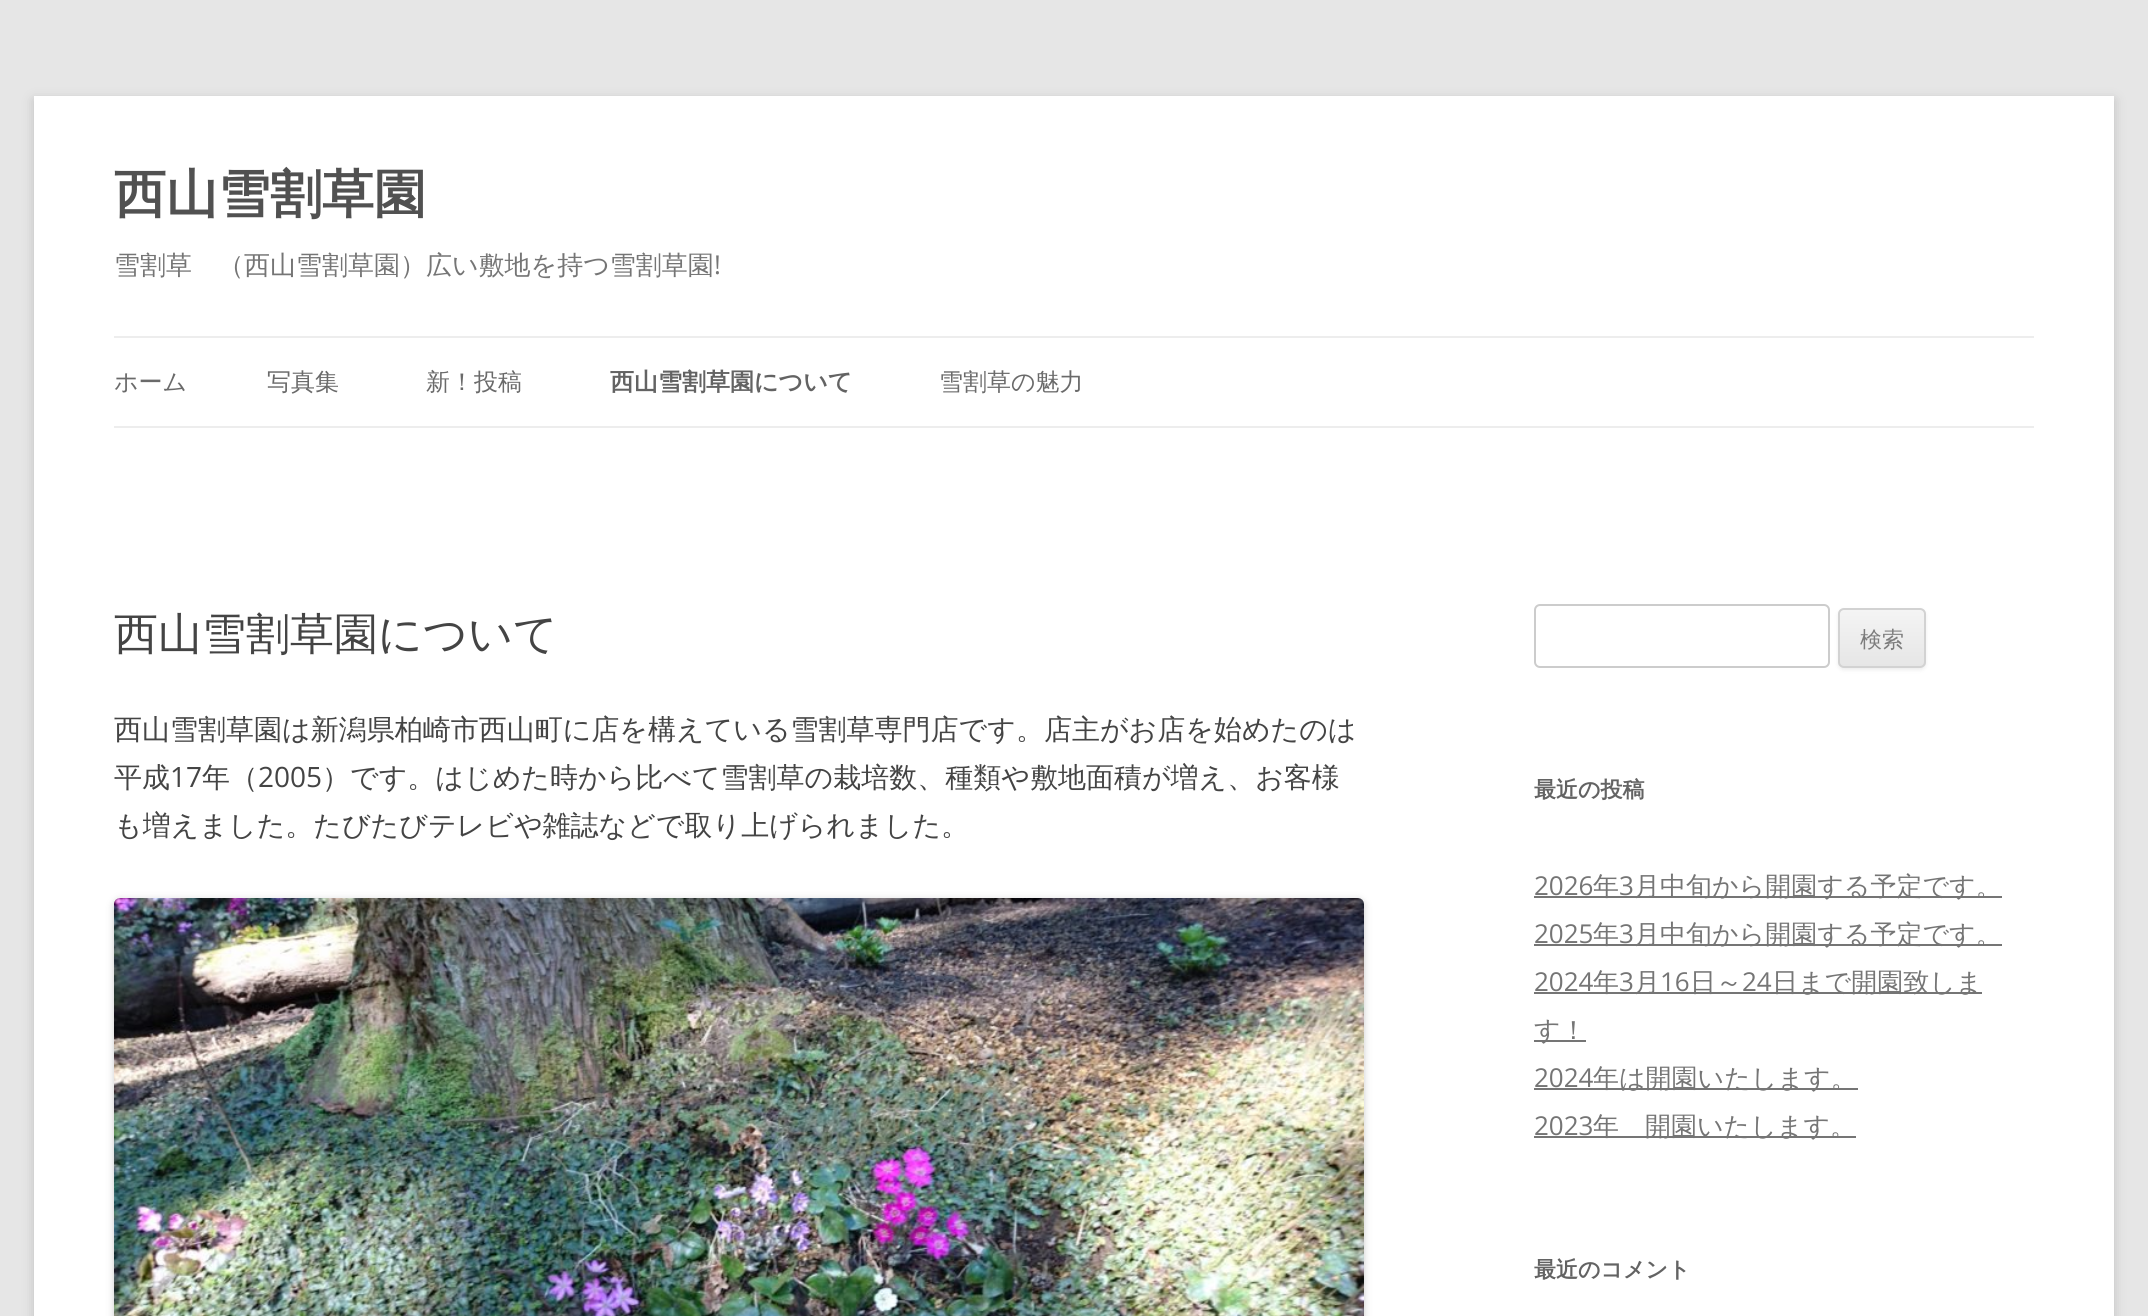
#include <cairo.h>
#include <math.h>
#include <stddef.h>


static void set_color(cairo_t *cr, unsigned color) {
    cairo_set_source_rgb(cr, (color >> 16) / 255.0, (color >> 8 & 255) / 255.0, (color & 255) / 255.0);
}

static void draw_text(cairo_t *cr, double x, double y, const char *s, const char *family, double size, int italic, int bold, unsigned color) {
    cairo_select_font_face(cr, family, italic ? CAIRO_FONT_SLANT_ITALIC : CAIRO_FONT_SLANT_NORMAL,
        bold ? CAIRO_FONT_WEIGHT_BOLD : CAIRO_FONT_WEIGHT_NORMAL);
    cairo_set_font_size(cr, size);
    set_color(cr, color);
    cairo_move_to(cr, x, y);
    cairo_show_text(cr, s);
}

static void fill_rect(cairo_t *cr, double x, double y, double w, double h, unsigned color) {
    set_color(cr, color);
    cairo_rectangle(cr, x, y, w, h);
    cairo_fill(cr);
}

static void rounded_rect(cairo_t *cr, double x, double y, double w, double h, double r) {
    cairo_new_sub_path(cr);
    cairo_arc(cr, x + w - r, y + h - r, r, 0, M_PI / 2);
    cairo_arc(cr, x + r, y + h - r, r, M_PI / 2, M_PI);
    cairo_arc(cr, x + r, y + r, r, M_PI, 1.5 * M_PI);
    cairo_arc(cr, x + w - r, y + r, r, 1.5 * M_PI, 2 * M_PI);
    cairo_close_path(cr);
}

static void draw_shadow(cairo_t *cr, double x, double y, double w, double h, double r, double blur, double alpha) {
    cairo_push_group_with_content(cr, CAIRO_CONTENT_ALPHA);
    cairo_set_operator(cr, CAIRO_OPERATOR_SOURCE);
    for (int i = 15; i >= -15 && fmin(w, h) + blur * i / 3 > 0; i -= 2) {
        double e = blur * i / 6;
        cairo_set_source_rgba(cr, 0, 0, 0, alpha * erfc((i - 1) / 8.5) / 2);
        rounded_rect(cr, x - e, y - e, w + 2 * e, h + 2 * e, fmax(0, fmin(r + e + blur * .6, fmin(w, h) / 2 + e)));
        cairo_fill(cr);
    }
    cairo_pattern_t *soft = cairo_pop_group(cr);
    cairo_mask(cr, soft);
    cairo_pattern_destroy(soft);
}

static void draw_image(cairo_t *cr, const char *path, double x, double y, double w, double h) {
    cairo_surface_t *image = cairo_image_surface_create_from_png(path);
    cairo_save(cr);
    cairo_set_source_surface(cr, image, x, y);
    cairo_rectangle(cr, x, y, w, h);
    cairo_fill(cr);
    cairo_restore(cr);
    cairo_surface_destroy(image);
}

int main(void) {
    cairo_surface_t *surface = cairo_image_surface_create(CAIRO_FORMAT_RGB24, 2148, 1316);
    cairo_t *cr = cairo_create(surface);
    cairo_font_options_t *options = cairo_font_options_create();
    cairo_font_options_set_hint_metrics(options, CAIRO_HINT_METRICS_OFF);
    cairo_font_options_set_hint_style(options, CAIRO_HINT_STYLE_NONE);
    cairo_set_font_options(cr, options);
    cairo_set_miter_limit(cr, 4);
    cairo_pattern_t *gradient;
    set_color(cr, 0xE6E6E6);
    cairo_paint(cr);
    set_color(cr, 0x646464);
    draw_shadow(cr, 34, 100, 2080, 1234, 0, 6, 0.3);
    fill_rect(cr, 34, 96, 2080, 1220, 0xFFFFFF);
    draw_text(cr, 114, 212, "西山雪割草園", "WenQuanYi Zen Hei", 52, 0, 1, 0x515151);
    draw_text(cr, 114, 274, "雪割草　（西山雪割草園）広い敷地を持つ雪割草園", "WenQuanYi Zen Hei Medium", 26, 0, 0, 0x757575);
    draw_text(cr, 714, 274, "!", "Open Sans", 26, 0, 0, 0x757575);
    fill_rect(cr, 114, 336, 1920, 2, 0xEDEDED);
    fill_rect(cr, 114, 426, 1920, 2, 0xEDEDED);
    draw_text(cr, 114, 390, "ホーム", "WenQuanYi Zen Hei Medium", 24, 0, 0, 0x6A6A6A);
    draw_text(cr, 267, 390, "写真集", "WenQuanYi Zen Hei Medium", 24, 0, 0, 0x6A6A6A);
    draw_text(cr, 426, 390, "新！投稿", "WenQuanYi Zen Hei Medium", 24, 0, 0, 0x6A6A6A);
    draw_text(cr, 610, 390, "西山雪割草園について", "WenQuanYi Zen Hei", 24, 0, 1, 0x636363);
    draw_text(cr, 939, 390, "雪割草の魅力", "WenQuanYi Zen Hei Medium", 24, 0, 0, 0x6A6A6A);
    draw_text(cr, 114, 649, "西山雪割草園について", "WenQuanYi Zen Hei Medium", 44, 0, 0, 0x444444);
    draw_text(cr, 114, 739, "西山雪割草園は新潟県柏崎市西山町に店を構えている雪割草専門店です。店主がお店を始めたのは", "WenQuanYi Zen Hei Medium", 28, 0, 0, 0x444444);
    draw_text(cr, 114, 787, "平成", "WenQuanYi Zen Hei Medium", 28, 0, 0, 0x444444);
    draw_text(cr, 170, 787, "17", "Open Sans", 28, 0, 0, 0x444444);
    draw_text(cr, 202, 787, "年（", "WenQuanYi Zen Hei Medium", 28, 0, 0, 0x444444);
    draw_text(cr, 258, 787, "2005", "Open Sans", 28, 0, 0, 0x444444);
    draw_text(cr, 322, 787, "）です。はじめた時から比べて雪割草の栽培数、種類や敷地面積が増え、お客様", "WenQuanYi Zen Hei Medium", 28, 0, 0, 0x444444);
    draw_text(cr, 114, 835, "も増えました。たびたびテレビや雑誌などで取り上げられました。", "WenQuanYi Zen Hei Medium", 28, 0, 0, 0x444444);
    set_color(cr, 0x000000);
    draw_shadow(cr, 114, 900, 1250, 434, 6, 4, 0.2);
    draw_image(cr, "assets/img1.png", 114, 898, 1250, 418);
    rounded_rect(cr, 1535, 605, 294, 62, 5);
    set_color(cr, 0xCCCCCC);
    cairo_stroke(cr);
    set_color(cr, 0x404040);
    draw_shadow(cr, 1838, 610, 88, 60, 6, 2, 0.1);
    cairo_save(cr);
    rounded_rect(cr, 1838, 608, 88, 60, 6);
    cairo_clip(cr);
    gradient = cairo_pattern_create_linear(1882, 610, 1882, 666);
    cairo_pattern_add_color_stop_rgba(gradient, 0, 0.957, 0.957, 0.957, 1);
    cairo_pattern_add_color_stop_rgba(gradient, 1, 0.902, 0.902, 0.902, 1);
    cairo_set_source(cr, gradient);
    cairo_pattern_destroy(gradient);
    cairo_rectangle(cr, 1838, 610, 88, 56);
    cairo_fill(cr);
    cairo_restore(cr);
    rounded_rect(cr, 1839, 609, 86, 58, 5);
    set_color(cr, 0xD2D2D2);
    cairo_stroke(cr);
    draw_text(cr, 1860, 647, "検索", "WenQuanYi Zen Hei Medium", 22, 0, 0, 0x7C7C7C);
    draw_text(cr, 1534, 797, "最近の投稿", "WenQuanYi Zen Hei", 22, 0, 1, 0x636363);
    draw_text(cr, 1534, 895, "2026", "Open Sans", 26, 0, 0, 0x757575);
    fill_rect(cr, 1534, 896, 468, 2, 0x757575);
    draw_text(cr, 1593, 895, "年", "WenQuanYi Zen Hei Medium", 26, 0, 0, 0x757575);
    draw_text(cr, 1619, 895, "3", "Open Sans", 26, 0, 0, 0x757575);
    draw_text(cr, 1634, 895, "月中旬から開園する予定です。", "WenQuanYi Zen Hei Medium", 26, 0, 0, 0x757575);
    draw_text(cr, 1534, 943, "2025", "Open Sans", 26, 0, 0, 0x757575);
    fill_rect(cr, 1534, 944, 468, 2, 0x757575);
    draw_text(cr, 1593, 943, "年", "WenQuanYi Zen Hei Medium", 26, 0, 0, 0x757575);
    draw_text(cr, 1619, 943, "3", "Open Sans", 26, 0, 0, 0x757575);
    draw_text(cr, 1634, 943, "月中旬から開園する予定です。", "WenQuanYi Zen Hei Medium", 26, 0, 0, 0x757575);
    draw_text(cr, 1534, 991, "2024", "Open Sans", 26, 0, 0, 0x757575);
    fill_rect(cr, 1534, 992, 448, 2, 0x757575);
    draw_text(cr, 1593, 991, "年", "WenQuanYi Zen Hei Medium", 26, 0, 0, 0x757575);
    draw_text(cr, 1619, 991, "3", "Open Sans", 26, 0, 0, 0x757575);
    draw_text(cr, 1634, 991, "月", "WenQuanYi Zen Hei Medium", 26, 0, 0, 0x757575);
    draw_text(cr, 1660, 991, "16", "Open Sans", 26, 0, 0, 0x757575);
    draw_text(cr, 1690, 991, "日～", "WenQuanYi Zen Hei Medium", 26, 0, 0, 0x757575);
    draw_text(cr, 1742, 991, "24", "Open Sans", 26, 0, 0, 0x757575);
    draw_text(cr, 1772, 991, "日まで開園致しま", "WenQuanYi Zen Hei Medium", 26, 0, 0, 0x757575);
    fill_rect(cr, 1534, 1040, 52, 2, 0x757575);
    draw_text(cr, 1534, 1039, "す！", "WenQuanYi Zen Hei Medium", 26, 0, 0, 0x757575);
    draw_text(cr, 1534, 1087, "2024", "Open Sans", 26, 0, 0, 0x757575);
    fill_rect(cr, 1534, 1088, 324, 2, 0x757575);
    draw_text(cr, 1593, 1087, "年は開園いたします。", "WenQuanYi Zen Hei Medium", 26, 0, 0, 0x757575);
    draw_text(cr, 1534, 1135, "2023", "Open Sans", 26, 0, 0, 0x757575);
    fill_rect(cr, 1534, 1136, 322, 2, 0x757575);
    draw_text(cr, 1593, 1135, "年　開園いたします。", "WenQuanYi Zen Hei Medium", 26, 0, 0, 0x757575);
    draw_text(cr, 1534, 1277, "最近のコメント", "WenQuanYi Zen Hei", 22, 0, 1, 0x636363);
    cairo_surface_write_to_png(surface, "output.png");
    cairo_font_options_destroy(options);
    cairo_destroy(cr);
    cairo_surface_destroy(surface);
    return 0;
}
